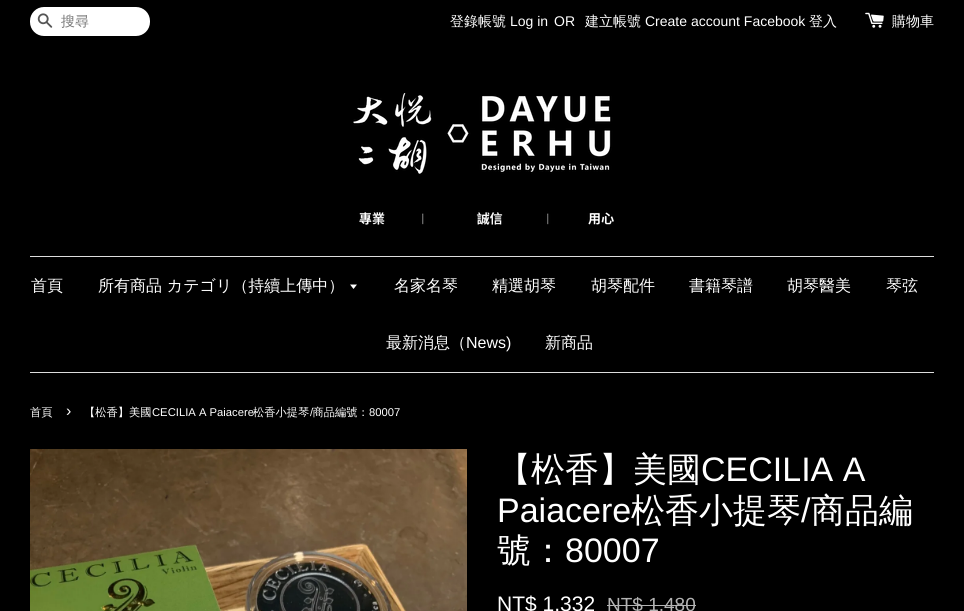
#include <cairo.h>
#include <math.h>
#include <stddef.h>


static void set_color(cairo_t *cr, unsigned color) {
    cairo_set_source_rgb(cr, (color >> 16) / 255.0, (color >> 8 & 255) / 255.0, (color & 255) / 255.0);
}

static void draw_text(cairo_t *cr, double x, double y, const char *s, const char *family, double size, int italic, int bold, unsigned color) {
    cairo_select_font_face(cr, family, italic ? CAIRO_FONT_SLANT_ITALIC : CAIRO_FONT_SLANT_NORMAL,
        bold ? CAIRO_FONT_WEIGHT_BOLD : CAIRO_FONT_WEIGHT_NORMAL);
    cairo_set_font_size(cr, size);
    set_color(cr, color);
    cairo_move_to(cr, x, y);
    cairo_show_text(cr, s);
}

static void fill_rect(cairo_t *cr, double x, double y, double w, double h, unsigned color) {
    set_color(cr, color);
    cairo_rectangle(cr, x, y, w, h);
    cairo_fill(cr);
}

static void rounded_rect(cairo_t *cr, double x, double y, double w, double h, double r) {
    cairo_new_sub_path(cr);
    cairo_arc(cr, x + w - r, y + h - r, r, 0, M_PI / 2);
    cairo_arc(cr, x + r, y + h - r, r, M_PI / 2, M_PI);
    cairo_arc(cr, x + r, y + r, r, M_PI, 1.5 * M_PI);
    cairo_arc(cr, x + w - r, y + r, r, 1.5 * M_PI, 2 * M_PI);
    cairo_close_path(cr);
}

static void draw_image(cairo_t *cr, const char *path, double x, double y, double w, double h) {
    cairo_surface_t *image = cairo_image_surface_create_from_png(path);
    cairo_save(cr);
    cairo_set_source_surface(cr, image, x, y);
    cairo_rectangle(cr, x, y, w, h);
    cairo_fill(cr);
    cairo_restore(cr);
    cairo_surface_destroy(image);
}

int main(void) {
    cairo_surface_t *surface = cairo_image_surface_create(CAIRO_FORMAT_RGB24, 964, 611);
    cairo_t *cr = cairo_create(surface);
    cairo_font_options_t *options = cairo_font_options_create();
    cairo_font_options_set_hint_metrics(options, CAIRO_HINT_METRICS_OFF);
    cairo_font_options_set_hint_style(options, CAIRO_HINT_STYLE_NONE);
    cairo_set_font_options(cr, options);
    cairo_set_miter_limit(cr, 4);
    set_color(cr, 0x000000);
    cairo_paint(cr);
    set_color(cr, 0xFFFFFF);
    rounded_rect(cr, 30, 7, 120, 29, 14);
    cairo_fill(cr);
    draw_image(cr, "assets/img1.png", 37, 13, 16, 15);
    draw_text(cr, 61, 26, "搜尋", "WenQuanYi Zen Hei Medium", 14, 0, 0, 0x757575);
    draw_text(cr, 450, 26, "登錄帳號", "WenQuanYi Zen Hei Medium", 14, 0, 0, 0xFFFFFF);
    draw_text(cr, 510, 26, "Log in", "Liberation Sans", 14, 0, 0, 0xFFFFFF);
    draw_text(cr, 554, 26, "OR", "Liberation Sans", 14, 0, 0, 0xFFFFFF);
    draw_text(cr, 585, 26, "建立帳號", "WenQuanYi Zen Hei Medium", 14, 0, 0, 0xFFFFFF);
    draw_text(cr, 645, 26, "Create account Facebook", "Liberation Sans", 14, 0, 0, 0xFFFFFF);
    draw_text(cr, 809, 26, "登入", "WenQuanYi Zen Hei Medium", 14, 0, 0, 0xFFFFFF);
    draw_image(cr, "assets/img2.png", 865, 12, 19, 16);
    draw_text(cr, 892, 26, "購物車", "WenQuanYi Zen Hei Medium", 14, 0, 0, 0xFFFFFF);
    draw_image(cr, "assets/img3.png", 353, 93, 261, 132);
    fill_rect(cr, 30, 256, 904, 1, 0xDDDDDD);
    fill_rect(cr, 30, 372, 904, 1, 0xDDDDDD);
    draw_text(cr, 31, 291, "首頁", "WenQuanYi Zen Hei Medium", 16, 0, 0, 0xFFFFFF);
    draw_text(cr, 98, 291, "所有商品 カテゴリ（持續上傳中）", "WenQuanYi Zen Hei Medium", 16, 0, 0, 0xFFFFFF);
    cairo_new_path(cr);
    cairo_move_to(cr, 350, 284.5);
    cairo_line_to(cr, 353.5, 289);
    cairo_line_to(cr, 357, 284.5);
    cairo_close_path(cr);
    cairo_fill(cr);
    draw_text(cr, 394, 291, "名家名琴", "WenQuanYi Zen Hei Medium", 16, 0, 0, 0xFFFFFF);
    draw_text(cr, 492, 291, "精選胡琴", "WenQuanYi Zen Hei Medium", 16, 0, 0, 0xFFFFFF);
    draw_text(cr, 591, 291, "胡琴配件", "WenQuanYi Zen Hei Medium", 16, 0, 0, 0xFFFFFF);
    draw_text(cr, 689, 291, "書籍琴譜", "WenQuanYi Zen Hei Medium", 16, 0, 0, 0xFFFFFF);
    draw_text(cr, 787, 291, "胡琴醫美", "WenQuanYi Zen Hei Medium", 16, 0, 0, 0xFFFFFF);
    draw_text(cr, 886, 291, "琴弦", "WenQuanYi Zen Hei Medium", 16, 0, 0, 0xFFFFFF);
    draw_text(cr, 386, 348, "最新消息（", "WenQuanYi Zen Hei Medium", 16, 0, 0, 0xFFFFFF);
    draw_text(cr, 466, 348, "News)", "Liberation Sans", 16, 0, 0, 0xFFFFFF);
    draw_text(cr, 545, 348, "新商品", "WenQuanYi Zen Hei Medium", 16, 0, 0, 0xFFFFFF);
    draw_text(cr, 30, 416, "首頁", "WenQuanYi Zen Hei Medium", 11.25, 0, 0, 0xFFFFFF);
    draw_text(cr, 84, 416, "【松香】美國", "WenQuanYi Zen Hei Medium", 11.25, 0, 0, 0xFFFFFF);
    draw_text(cr, 152, 416, "CECILIA A Paiacere", "Liberation Sans", 11.25, 0, 0, 0xFFFFFF);
    draw_text(cr, 253, 416, "松香小提琴 商品編號：", "WenQuanYi Zen Hei Medium", 11.25, 0, 0, 0xFFFFFF);
    draw_text(cr, 66, 416, "›", "Liberation Sans", 16, 0, 0, 0xFFFFFF);
    draw_text(cr, 310, 416, "/", "Liberation Sans", 11.25, 0, 0, 0xFFFFFF);
    draw_text(cr, 369, 416, "80007", "Liberation Sans", 11.25, 0, 0, 0xFFFFFF);
    draw_image(cr, "assets/img4.png", 30, 449, 437, 162);
    draw_text(cr, 497, 481, "【松香】美國", "WenQuanYi Zen Hei Medium", 34, 0, 0, 0xFFFFFF);
    draw_text(cr, 701, 481, "CECILIA A", "Liberation Sans", 34, 0, 0, 0xFFFFFF);
    draw_text(cr, 497, 522, "Paiacere", "Liberation Sans", 34, 0, 0, 0xFFFFFF);
    draw_text(cr, 631, 522, "松香小提琴", "WenQuanYi Zen Hei Medium", 34, 0, 0, 0xFFFFFF);
    draw_text(cr, 801, 522, "/", "Liberation Sans", 34, 0, 0, 0xFFFFFF);
    draw_text(cr, 811, 522, "商品編", "WenQuanYi Zen Hei Medium", 34, 0, 0, 0xFFFFFF);
    draw_text(cr, 497, 562, "號：", "WenQuanYi Zen Hei Medium", 34, 0, 0, 0xFFFFFF);
    draw_text(cr, 565, 562, "80007", "Liberation Sans", 34, 0, 0, 0xFFFFFF);
    draw_text(cr, 497, 611, "NT$ 1,332", "Liberation Sans", 21, 0, 0, 0xFFFFFF);
    draw_text(cr, 607, 611, "NT$ 1,480", "Liberation Sans", 19, 0, 0, 0xB3B3B3);
    fill_rect(cr, 607, 605, 89, 1, 0xB3B3B3);
    cairo_surface_write_to_png(surface, "output.png");
    cairo_font_options_destroy(options);
    cairo_destroy(cr);
    cairo_surface_destroy(surface);
    return 0;
}
